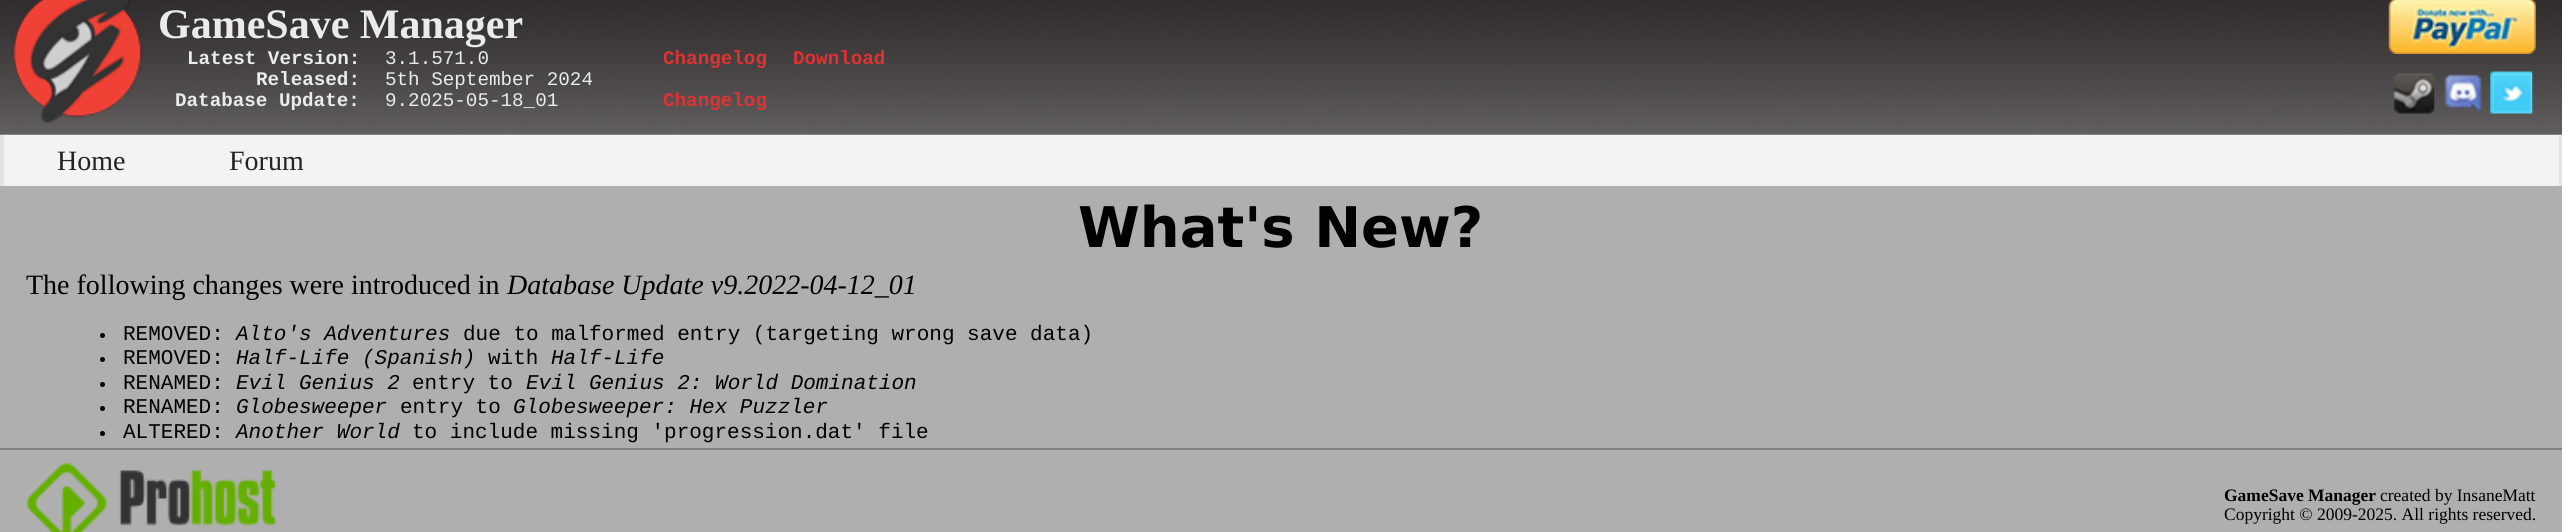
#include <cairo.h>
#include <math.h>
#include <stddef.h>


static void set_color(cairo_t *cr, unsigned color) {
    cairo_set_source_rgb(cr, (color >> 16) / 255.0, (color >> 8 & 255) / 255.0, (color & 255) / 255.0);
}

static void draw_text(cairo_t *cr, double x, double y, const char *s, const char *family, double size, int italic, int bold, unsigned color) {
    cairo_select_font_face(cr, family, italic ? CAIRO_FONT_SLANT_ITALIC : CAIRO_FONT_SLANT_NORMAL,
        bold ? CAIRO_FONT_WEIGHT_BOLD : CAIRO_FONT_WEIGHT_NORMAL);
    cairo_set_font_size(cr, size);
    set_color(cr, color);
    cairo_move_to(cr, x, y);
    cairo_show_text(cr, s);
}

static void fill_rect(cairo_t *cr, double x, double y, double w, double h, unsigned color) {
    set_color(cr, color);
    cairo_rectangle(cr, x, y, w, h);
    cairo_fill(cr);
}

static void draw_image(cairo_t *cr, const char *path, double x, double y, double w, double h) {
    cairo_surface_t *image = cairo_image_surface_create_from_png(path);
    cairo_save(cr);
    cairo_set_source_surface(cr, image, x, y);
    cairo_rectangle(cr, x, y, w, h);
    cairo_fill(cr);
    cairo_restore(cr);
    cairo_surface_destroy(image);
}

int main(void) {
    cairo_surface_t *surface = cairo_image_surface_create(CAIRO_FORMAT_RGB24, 2562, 532);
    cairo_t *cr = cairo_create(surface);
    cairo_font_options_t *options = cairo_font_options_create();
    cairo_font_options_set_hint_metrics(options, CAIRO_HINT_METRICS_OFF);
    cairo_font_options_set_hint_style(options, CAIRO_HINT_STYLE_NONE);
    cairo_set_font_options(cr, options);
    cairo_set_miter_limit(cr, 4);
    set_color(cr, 0xAFAFAF);
    cairo_paint(cr);
    draw_image(cr, "assets/img1.png", 0, 0, 2562, 135);
    draw_image(cr, "assets/img2.png", 12, 0, 131, 123);
    draw_text(cr, 158, 38, "GameSave Manager", "Liberation Serif", 42, 0, 1, 0xEAEBED);
    draw_text(cr, 187, 64, "Latest Version:", "Liberation Mono", 19.25, 0, 1, 0xEAEBED);
    draw_text(cr, 256, 85, "Released:", "Liberation Mono", 19.25, 0, 1, 0xEAEBED);
    draw_text(cr, 175, 106, "Database Update:", "Liberation Mono", 19.25, 0, 1, 0xEAEBED);
    draw_text(cr, 385, 64, "3.1.571.0", "Liberation Mono", 19.25, 0, 0, 0xEAEBED);
    draw_text(cr, 385, 85, "5th September 2024", "Liberation Mono", 19.25, 0, 0, 0xEAEBED);
    draw_text(cr, 385, 106, "9.2025-05-18_01", "Liberation Mono", 19.25, 0, 0, 0xEAEBED);
    draw_text(cr, 663, 64, "Changelog", "Liberation Mono", 19.25, 0, 1, 0xE13232);
    draw_text(cr, 793, 64, "Download", "Liberation Mono", 19.25, 0, 1, 0xE13232);
    draw_text(cr, 663, 106, "Changelog", "Liberation Mono", 19.25, 0, 1, 0xE13232);
    draw_image(cr, "assets/img3.png", 2388, 0, 148, 54);
    draw_image(cr, "assets/img4.png", 2393, 73, 42, 41);
    draw_image(cr, "assets/img5.png", 2444, 74, 38, 38);
    draw_image(cr, "assets/img6.png", 2490, 71, 43, 43);
    fill_rect(cr, 0, 135, 2562, 51, 0xE4E4E4);
    fill_rect(cr, 4, 135, 2555, 51, 0xF3F3F3);
    draw_text(cr, 57, 170, "Home", "Liberation Serif", 28, 0, 0, 0x232323);
    draw_text(cr, 229, 170, "Forum", "Liberation Serif", 28, 0, 0, 0x232323);
    draw_text(cr, 1078, 247, "What's New?", "DejaVu Sans", 56, 0, 1, 0x000000);
    draw_text(cr, 26, 294, "The following changes were introduced in", "Liberation Serif", 28, 0, 0, 0x000000);
    draw_text(cr, 507, 294, "Database Update v9.2022-04-12_01", "Liberation Serif", 28, 1, 0, 0x000000);
    cairo_new_path(cr);
    cairo_arc(cr, 102.5, 335.5, 2.5, 0, 2 * M_PI);
    cairo_fill(cr);
    draw_text(cr, 123, 340, "REMOVED:", "Liberation Mono", 21, 0, 0, 0x000000);
    draw_text(cr, 236, 340, "Alto's Adventures", "Liberation Mono", 21, 1, 0, 0x000000);
    draw_text(cr, 463, 340, "due to malformed entry (targeting wrong save data)", "Liberation Mono", 21, 0, 0, 0x000000);
    cairo_new_path(cr);
    cairo_arc(cr, 102.5, 359.5, 2.5, 0, 2 * M_PI);
    cairo_fill(cr);
    draw_text(cr, 123, 364, "REMOVED:", "Liberation Mono", 21, 0, 0, 0x000000);
    draw_text(cr, 236, 364, "Half-Life (Spanish)", "Liberation Mono", 21, 1, 0, 0x000000);
    draw_text(cr, 488, 364, "with", "Liberation Mono", 21, 0, 0, 0x000000);
    draw_text(cr, 551, 364, "Half-Life", "Liberation Mono", 21, 1, 0, 0x000000);
    cairo_new_path(cr);
    cairo_arc(cr, 102.5, 384.5, 2.5, 0, 2 * M_PI);
    cairo_fill(cr);
    draw_text(cr, 123, 389, "RENAMED:", "Liberation Mono", 21, 0, 0, 0x000000);
    draw_text(cr, 236, 389, "Evil Genius 2", "Liberation Mono", 21, 1, 0, 0x000000);
    draw_text(cr, 412, 389, "entry to", "Liberation Mono", 21, 0, 0, 0x000000);
    draw_text(cr, 526, 389, "Evil Genius 2: World Domination", "Liberation Mono", 21, 1, 0, 0x000000);
    cairo_new_path(cr);
    cairo_arc(cr, 102.5, 408.5, 2.5, 0, 2 * M_PI);
    cairo_fill(cr);
    draw_text(cr, 123, 413, "RENAMED:", "Liberation Mono", 21, 0, 0, 0x000000);
    draw_text(cr, 236, 413, "Globesweeper", "Liberation Mono", 21, 1, 0, 0x000000);
    draw_text(cr, 400, 413, "entry to", "Liberation Mono", 21, 0, 0, 0x000000);
    draw_text(cr, 513, 413, "Globesweeper: Hex Puzzler", "Liberation Mono", 21, 1, 0, 0x000000);
    cairo_new_path(cr);
    cairo_arc(cr, 102.5, 433.5, 2.5, 0, 2 * M_PI);
    cairo_fill(cr);
    draw_text(cr, 123, 438, "ALTERED:", "Liberation Mono", 21, 0, 0, 0x000000);
    draw_text(cr, 236, 438, "Another World", "Liberation Mono", 21, 1, 0, 0x000000);
    draw_text(cr, 412, 438, "to include missing 'progression.dat' file", "Liberation Mono", 21, 0, 0, 0x000000);
    fill_rect(cr, 0, 448, 2562, 2, 0x808080);
    draw_image(cr, "assets/img7.png", 26, 463, 251, 69);
    draw_text(cr, 2224, 501, "GameSave Manager", "Liberation Serif", 17.5, 0, 1, 0x000000);
    draw_text(cr, 2380, 501, "created by InsaneMatt", "Liberation Serif", 17.5, 0, 0, 0x000000);
    draw_text(cr, 2224, 520, "Copyright © 2009-2025. All rights reserved.", "Liberation Serif", 17.5, 0, 0, 0x000000);
    cairo_surface_write_to_png(surface, "output.png");
    cairo_font_options_destroy(options);
    cairo_destroy(cr);
    cairo_surface_destroy(surface);
    return 0;
}
